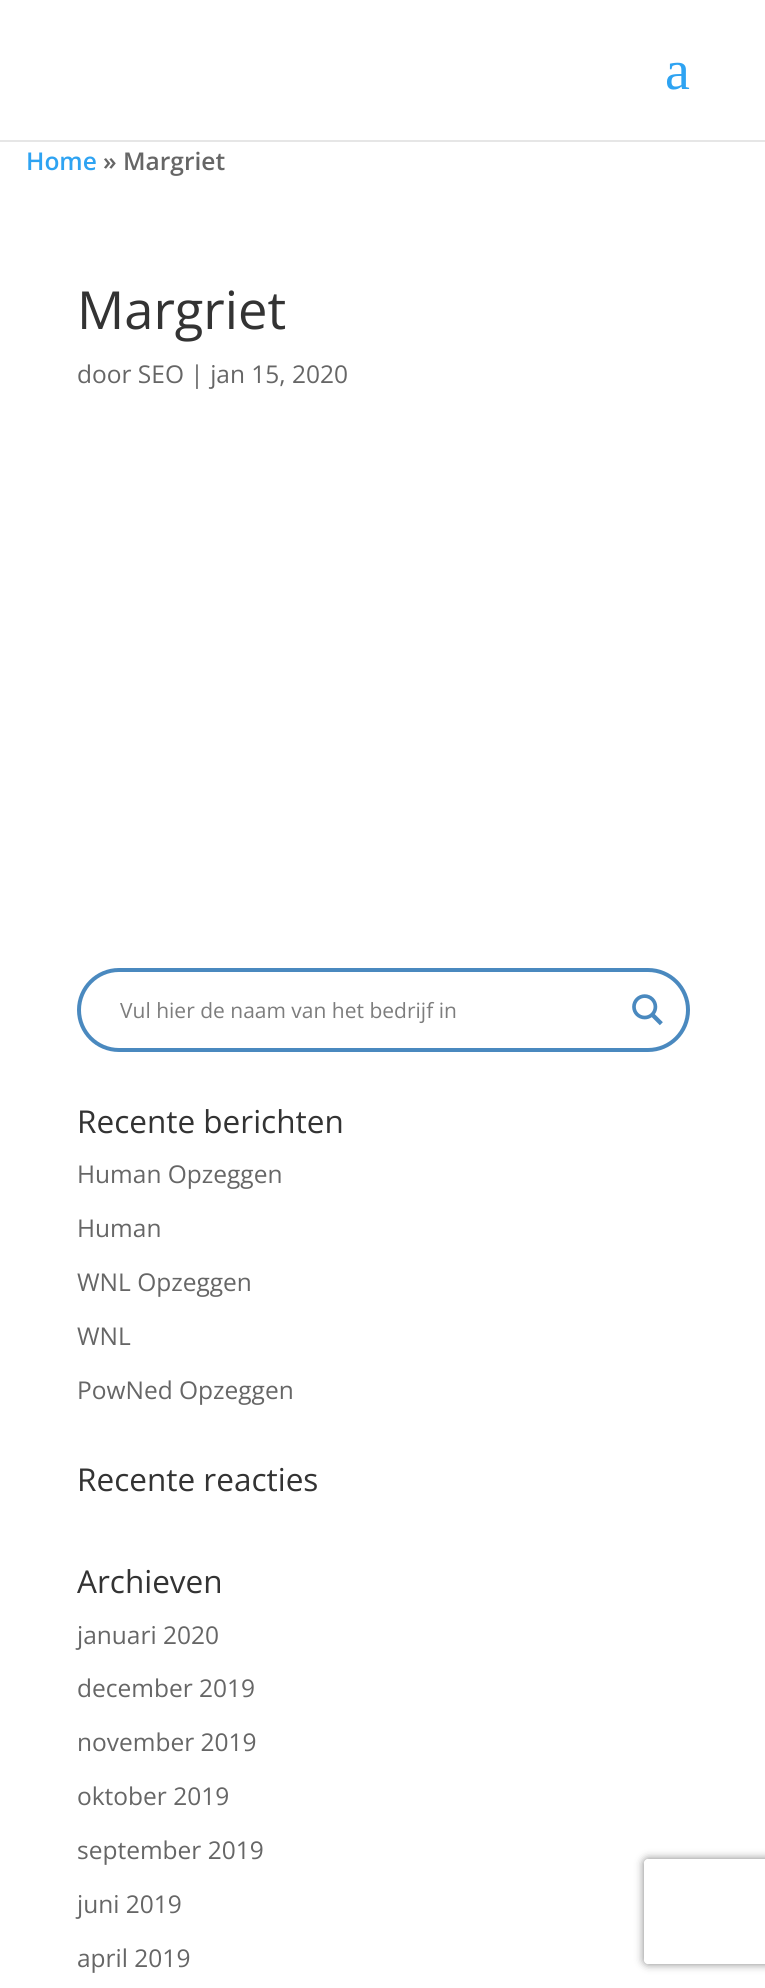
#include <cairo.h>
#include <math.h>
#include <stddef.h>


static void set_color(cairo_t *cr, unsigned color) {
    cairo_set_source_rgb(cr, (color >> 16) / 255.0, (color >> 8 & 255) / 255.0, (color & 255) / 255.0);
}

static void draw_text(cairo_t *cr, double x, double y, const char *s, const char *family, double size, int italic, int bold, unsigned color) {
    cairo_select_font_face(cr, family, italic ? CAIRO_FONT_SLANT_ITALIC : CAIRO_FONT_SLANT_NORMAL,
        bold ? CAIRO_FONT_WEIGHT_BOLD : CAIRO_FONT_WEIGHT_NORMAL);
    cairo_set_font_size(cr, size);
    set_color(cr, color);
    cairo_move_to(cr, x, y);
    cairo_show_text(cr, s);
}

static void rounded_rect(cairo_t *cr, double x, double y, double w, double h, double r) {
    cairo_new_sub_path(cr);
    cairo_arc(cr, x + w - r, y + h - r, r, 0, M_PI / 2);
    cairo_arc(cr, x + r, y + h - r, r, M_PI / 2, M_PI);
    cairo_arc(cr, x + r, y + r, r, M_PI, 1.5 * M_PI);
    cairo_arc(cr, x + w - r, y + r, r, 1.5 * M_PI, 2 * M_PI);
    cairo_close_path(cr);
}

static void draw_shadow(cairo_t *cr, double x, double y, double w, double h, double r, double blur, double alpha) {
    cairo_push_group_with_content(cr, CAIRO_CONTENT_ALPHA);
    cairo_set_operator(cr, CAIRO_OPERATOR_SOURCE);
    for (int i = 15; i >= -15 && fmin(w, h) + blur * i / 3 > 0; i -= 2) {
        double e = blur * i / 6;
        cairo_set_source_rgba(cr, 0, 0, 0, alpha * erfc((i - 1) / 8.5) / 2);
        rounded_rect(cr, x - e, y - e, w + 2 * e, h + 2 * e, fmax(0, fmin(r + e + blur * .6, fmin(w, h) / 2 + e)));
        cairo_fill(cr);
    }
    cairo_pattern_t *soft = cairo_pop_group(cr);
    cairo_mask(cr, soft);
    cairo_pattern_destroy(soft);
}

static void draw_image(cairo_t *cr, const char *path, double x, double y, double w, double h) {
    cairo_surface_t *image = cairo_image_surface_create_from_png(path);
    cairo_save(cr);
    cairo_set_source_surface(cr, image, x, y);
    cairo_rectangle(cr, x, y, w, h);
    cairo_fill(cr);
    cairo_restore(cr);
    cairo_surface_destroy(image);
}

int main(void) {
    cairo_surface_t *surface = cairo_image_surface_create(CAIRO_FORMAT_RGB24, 765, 1988);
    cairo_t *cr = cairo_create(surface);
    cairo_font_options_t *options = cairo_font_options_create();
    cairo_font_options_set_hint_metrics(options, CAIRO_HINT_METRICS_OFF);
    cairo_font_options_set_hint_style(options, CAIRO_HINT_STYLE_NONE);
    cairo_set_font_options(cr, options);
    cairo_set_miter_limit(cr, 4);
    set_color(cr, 0xFFFFFF);
    cairo_paint(cr);
    set_color(cr, 0xE6E6E6);
    cairo_new_path(cr);
    cairo_move_to(cr, 0, 140);
    cairo_line_to(cr, 0, 142);
    cairo_line_to(cr, 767, 142);
    cairo_line_to(cr, 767, 2);
    cairo_line_to(cr, 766, 2);
    cairo_line_to(cr, 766, 140);
    cairo_close_path(cr);
    cairo_fill(cr);
    draw_text(cr, 665, 89, "a", "Liberation Serif", 56, 0, 0, 0x2EA3F2);
    draw_text(cr, 26, 170, "Home", "Open Sans SemiBold", 24.5, 0, 0, 0x2EA3F2);
    draw_text(cr, 103, 170, "» Margriet", "Open Sans SemiBold", 24.5, 0, 0, 0x666666);
    draw_text(cr, 77, 329, "Margriet", "Open Sans", 52.5, 0, 0, 0x333333);
    draw_text(cr, 77, 383, "door SEO | jan 15, 2020", "Open Sans", 24.5, 0, 0, 0x666666);
    rounded_rect(cr, 79, 970, 609, 80, 40);
    set_color(cr, 0x4A89BF);
    cairo_set_line_width(cr, 4);
    cairo_stroke(cr);
    draw_text(cr, 120, 1018, "Vul hier de naam van het bedrijf in", "Open Sans", 21, 0, 0, 0x7D7D7D);
    draw_image(cr, "assets/img1.png", 632, 994, 31, 32);
    draw_text(cr, 77, 1133, "Recente berichten", "Open Sans", 31.5, 0, 0, 0x333333);
    draw_text(cr, 77, 1183, "Human Opzeggen", "Open Sans", 24.5, 0, 0, 0x666666);
    draw_text(cr, 77, 1237, "Human", "Open Sans", 24.5, 0, 0, 0x666666);
    draw_text(cr, 77, 1291, "WNL Opzeggen", "Open Sans", 24.5, 0, 0, 0x666666);
    draw_text(cr, 77, 1345, "WNL", "Open Sans", 24.5, 0, 0, 0x666666);
    draw_text(cr, 77, 1399, "PowNed Opzeggen", "Open Sans", 24.5, 0, 0, 0x666666);
    draw_text(cr, 77, 1491, "Recente reacties", "Open Sans", 31.5, 0, 0, 0x333333);
    draw_text(cr, 77, 1593, "Archieven", "Open Sans", 31.5, 0, 0, 0x333333);
    draw_text(cr, 77, 1644, "januari 2020", "Open Sans", 24.5, 0, 0, 0x666666);
    draw_text(cr, 77, 1697, "december 2019", "Open Sans", 24.5, 0, 0, 0x666666);
    draw_text(cr, 77, 1751, "november 2019", "Open Sans", 24.5, 0, 0, 0x666666);
    draw_text(cr, 77, 1805, "oktober 2019", "Open Sans", 24.5, 0, 0, 0x666666);
    draw_text(cr, 77, 1859, "september 2019", "Open Sans", 24.5, 0, 0, 0x666666);
    draw_text(cr, 77, 1913, "juni 2019", "Open Sans", 24.5, 0, 0, 0x666666);
    draw_text(cr, 77, 1967, "april 2019", "Open Sans", 24.5, 0, 0, 0x666666);
    cairo_save(cr);
    cairo_set_fill_rule(cr, CAIRO_FILL_RULE_EVEN_ODD);
    cairo_new_path(cr);
    cairo_move_to(cr, 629, 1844);
    cairo_line_to(cr, 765, 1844);
    cairo_line_to(cr, 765, 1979);
    cairo_line_to(cr, 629, 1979);
    cairo_close_path(cr);
    cairo_move_to(cr, 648, 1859);
    cairo_line_to(cr, 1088, 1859);
    cairo_curve_to(cr, 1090, 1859, 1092, 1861, 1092, 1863);
    cairo_line_to(cr, 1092, 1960);
    cairo_curve_to(cr, 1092, 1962, 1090, 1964, 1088, 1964);
    cairo_line_to(cr, 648, 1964);
    cairo_curve_to(cr, 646, 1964, 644, 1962, 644, 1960);
    cairo_line_to(cr, 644, 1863);
    cairo_curve_to(cr, 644, 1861, 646, 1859, 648, 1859);
    cairo_close_path(cr);
    cairo_clip(cr);
    set_color(cr, 0x808080);
    draw_shadow(cr, 644, 1859, 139, 105, 4, 4.5, 1);
    cairo_restore(cr);
    cairo_surface_write_to_png(surface, "output.png");
    cairo_font_options_destroy(options);
    cairo_destroy(cr);
    cairo_surface_destroy(surface);
    return 0;
}
